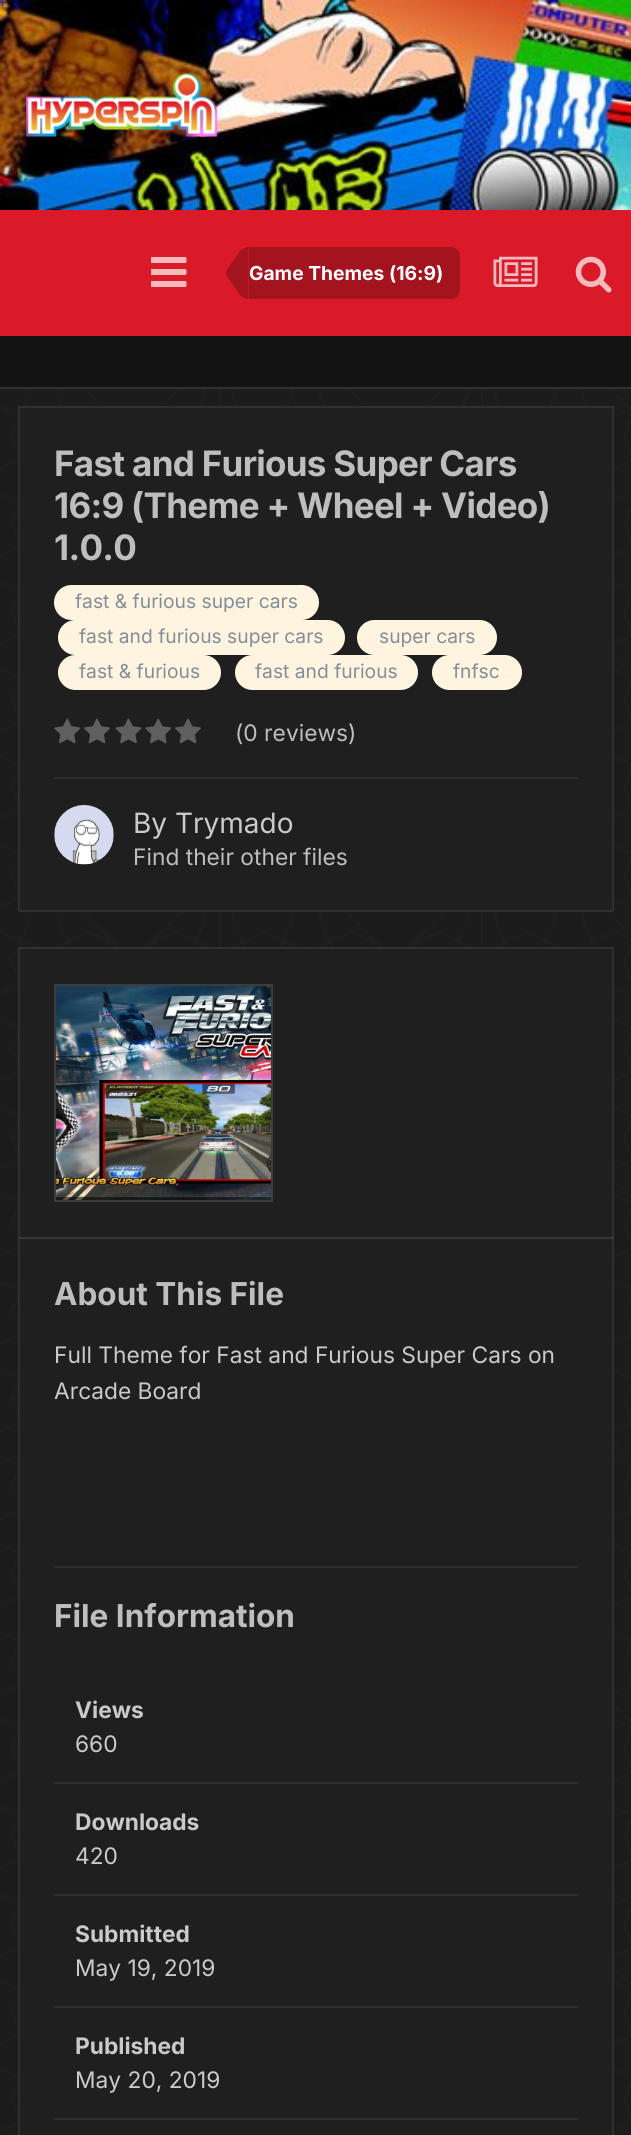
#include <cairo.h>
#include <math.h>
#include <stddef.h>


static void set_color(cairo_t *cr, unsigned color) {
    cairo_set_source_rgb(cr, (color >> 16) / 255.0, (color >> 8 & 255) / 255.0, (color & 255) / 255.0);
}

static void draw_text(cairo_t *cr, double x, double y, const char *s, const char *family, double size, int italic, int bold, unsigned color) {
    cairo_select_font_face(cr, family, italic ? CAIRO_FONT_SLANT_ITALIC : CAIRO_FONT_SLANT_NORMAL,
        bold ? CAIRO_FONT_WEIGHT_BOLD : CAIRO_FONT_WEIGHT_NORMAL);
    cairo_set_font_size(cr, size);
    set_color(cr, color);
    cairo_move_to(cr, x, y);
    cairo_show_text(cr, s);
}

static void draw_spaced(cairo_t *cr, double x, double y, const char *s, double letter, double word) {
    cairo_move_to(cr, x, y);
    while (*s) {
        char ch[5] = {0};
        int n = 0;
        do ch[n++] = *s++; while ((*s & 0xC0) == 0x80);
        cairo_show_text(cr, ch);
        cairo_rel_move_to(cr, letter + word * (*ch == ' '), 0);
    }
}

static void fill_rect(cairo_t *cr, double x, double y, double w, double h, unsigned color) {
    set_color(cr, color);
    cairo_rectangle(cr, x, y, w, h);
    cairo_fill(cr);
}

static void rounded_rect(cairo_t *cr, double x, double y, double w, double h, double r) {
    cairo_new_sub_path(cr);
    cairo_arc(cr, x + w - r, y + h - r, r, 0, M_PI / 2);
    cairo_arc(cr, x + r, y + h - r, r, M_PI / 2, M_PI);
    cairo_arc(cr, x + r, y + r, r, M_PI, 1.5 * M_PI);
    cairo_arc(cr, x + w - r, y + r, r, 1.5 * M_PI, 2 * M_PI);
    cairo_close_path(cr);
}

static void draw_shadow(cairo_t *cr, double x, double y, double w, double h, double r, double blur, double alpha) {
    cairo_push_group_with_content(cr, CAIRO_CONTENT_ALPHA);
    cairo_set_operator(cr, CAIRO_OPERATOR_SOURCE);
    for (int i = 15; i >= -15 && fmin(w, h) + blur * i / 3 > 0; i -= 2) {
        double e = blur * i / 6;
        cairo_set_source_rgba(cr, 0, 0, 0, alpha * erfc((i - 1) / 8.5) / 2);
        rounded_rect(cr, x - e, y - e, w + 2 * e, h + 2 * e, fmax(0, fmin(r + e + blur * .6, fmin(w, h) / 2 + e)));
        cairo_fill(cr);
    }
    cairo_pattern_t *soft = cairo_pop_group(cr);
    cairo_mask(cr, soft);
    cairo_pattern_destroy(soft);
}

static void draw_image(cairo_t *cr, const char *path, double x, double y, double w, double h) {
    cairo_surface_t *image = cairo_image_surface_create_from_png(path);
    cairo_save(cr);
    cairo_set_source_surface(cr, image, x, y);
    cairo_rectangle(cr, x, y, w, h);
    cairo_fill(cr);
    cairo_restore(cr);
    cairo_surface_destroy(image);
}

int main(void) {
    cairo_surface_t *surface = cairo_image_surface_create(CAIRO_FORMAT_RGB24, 631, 2135);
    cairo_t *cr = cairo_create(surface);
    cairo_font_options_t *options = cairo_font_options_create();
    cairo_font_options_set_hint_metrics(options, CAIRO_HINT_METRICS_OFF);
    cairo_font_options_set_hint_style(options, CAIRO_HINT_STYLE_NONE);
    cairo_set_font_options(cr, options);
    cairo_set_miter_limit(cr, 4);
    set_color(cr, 0xFFFFFF);
    cairo_paint(cr);
    draw_image(cr, "assets/img1.png", 0, 389, 631, 1746);
    draw_image(cr, "assets/img2.png", 0, 0, 631, 210);
    draw_image(cr, "assets/img3.png", 26, 73, 192, 64);
    set_color(cr, 0x1F1F1F);
    cairo_rectangle(cr, 19, 407, 594, 504);
    cairo_fill_preserve(cr);
    set_color(cr, 0x303030);
    cairo_stroke(cr);
    set_color(cr, 0x000000);
    draw_shadow(cr, -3, 173, 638, 186, 0, 16.5, 0.1);
    fill_rect(cr, 0, 336, 631, 51, 0x131313);
    fill_rect(cr, 0, 210, 631, 126, 0xDB1A29);
    fill_rect(cr, 0, 387, 631, 2, 0x303030);
    draw_image(cr, "assets/img4.png", 151, 257, 36, 30);
    set_color(cr, 0xA4141F);
    cairo_new_path(cr);
    cairo_move_to(cr, 249, 247);
    cairo_line_to(cr, 451, 247);
    cairo_curve_to(cr, 456, 247, 460, 251, 460, 256);
    cairo_line_to(cr, 460, 290);
    cairo_curve_to(cr, 460, 295, 456, 299, 451, 299);
    cairo_line_to(cr, 249, 299);
    cairo_close_path(cr);
    cairo_fill(cr);
    cairo_new_path(cr);
    cairo_move_to(cr, 227, 276.5);
    cairo_line_to(cr, 226, 273);
    cairo_line_to(cr, 248.5, 273);
    cairo_line_to(cr, 248.5, 299);
    cairo_curve_to(cr, 245.5, 299, 242.5, 297.5, 240, 295);
    cairo_close_path(cr);
    cairo_move_to(cr, 248.5, 247);
    cairo_line_to(cr, 248.5, 273);
    cairo_line_to(cr, 226, 273);
    cairo_line_to(cr, 227, 269.5);
    cairo_line_to(cr, 240, 251);
    cairo_curve_to(cr, 242.5, 248.5, 245.5, 247, 248.5, 247);
    cairo_close_path(cr);
    cairo_fill(cr);
    draw_text(cr, 249, 280, "Game Themes (16:9)", "Inter", 19.25, 0, 1, 0xFFFFFF);
    draw_image(cr, "assets/img5.png", 493, 256, 45, 31);
    draw_image(cr, "assets/img6.png", 575, 256, 37, 37);
    cairo_set_font_size(cr, 35);
    set_color(cr, 0xBEBEBE);
    draw_spaced(cr, 54, 476, "Fast and Furious Super Cars", -0.7, 0);
    draw_spaced(cr, 54, 518, "16:9 (Theme + Wheel + Video)", -0.7, 0);
    draw_spaced(cr, 54, 560, "1.0.0", -0.7, 0);
    set_color(cr, 0xFFF4DF);
    rounded_rect(cr, 54, 585, 265, 35, 17.5);
    cairo_fill(cr);
    draw_text(cr, 75, 608, "fast & furious super cars", "Inter", 19.25, 0, 0, 0x828E99);
    set_color(cr, 0xFFF4DF);
    rounded_rect(cr, 58, 620, 287, 35, 17.5);
    cairo_fill(cr);
    draw_text(cr, 79, 643, "fast and furious super cars", "Inter", 19.25, 0, 0, 0x828E99);
    set_color(cr, 0xFFF4DF);
    rounded_rect(cr, 357, 620, 140, 35, 17.5);
    cairo_fill(cr);
    draw_text(cr, 379, 643, "super cars", "Inter", 19.25, 0, 0, 0x828E99);
    set_color(cr, 0xFFF4DF);
    rounded_rect(cr, 58, 655, 163, 35, 17.5);
    cairo_fill(cr);
    draw_text(cr, 79, 678, "fast & furious", "Inter", 19.25, 0, 0, 0x828E99);
    set_color(cr, 0xFFF4DF);
    rounded_rect(cr, 235, 655, 183, 35, 17.5);
    cairo_fill(cr);
    draw_text(cr, 255, 678, "fast and furious", "Inter", 19.25, 0, 0, 0x828E99);
    set_color(cr, 0xFFF4DF);
    rounded_rect(cr, 432, 655, 90, 35, 17.5);
    cairo_fill(cr);
    draw_text(cr, 453, 678, "fnfsc", "Inter", 19.25, 0, 0, 0x828E99);
    draw_image(cr, "assets/img7.png", 54, 718, 27, 26);
    draw_image(cr, "assets/img8.png", 84, 718, 26, 26);
    draw_image(cr, "assets/img9.png", 115, 718, 27, 26);
    draw_image(cr, "assets/img7.png", 145, 718, 27, 26);
    draw_image(cr, "assets/img8.png", 175, 718, 26, 26);
    draw_text(cr, 235, 741, "(0 reviews)", "Inter", 22.75, 0, 0, 0xBEBEBE);
    fill_rect(cr, 54, 777, 524, 2, 0x2D2D2D);
    draw_image(cr, "assets/img10.png", 54, 805, 60, 60);
    draw_text(cr, 133, 833, "By Trymado", "Inter", 28, 0, 0, 0xCACACA);
    draw_text(cr, 133, 865, "Find their other files", "Inter", 22.75, 0, 0, 0xBEBEBE);
    set_color(cr, 0x1F1F1F);
    cairo_rectangle(cr, 19, 948, 594, 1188);
    cairo_fill_preserve(cr);
    set_color(cr, 0x303030);
    cairo_stroke(cr);
    cairo_set_source_rgba(cr, 0.745, 0.745, 0.745, 0.15);
    cairo_rectangle(cr, 19, 1237, 594, 2);
    cairo_fill(cr);
    draw_image(cr, "assets/img11.png", 56, 986, 215, 214);
    cairo_rectangle(cr, 55, 985, 217, 216);
    set_color(cr, 0x3C3C3C);
    cairo_stroke(cr);
    draw_text(cr, 54, 1305, "About This File", "Inter", 31.5, 0, 1, 0xBEBEBE);
    draw_text(cr, 54, 1363, "Full Theme for Fast and Furious Super Cars on", "Inter", 22.75, 0, 0, 0xCACACA);
    draw_text(cr, 54, 1399, "Arcade Board", "Inter", 22.75, 0, 0, 0xCACACA);
    fill_rect(cr, 54, 1566, 524, 2, 0x2D2D2D);
    draw_text(cr, 54, 1627, "File Information", "Inter", 31.5, 0, 1, 0xBEBEBE);
    fill_rect(cr, 54, 1782, 524, 2, 0x2F2F2F);
    draw_text(cr, 75, 1718, "Views", "Inter", 22.75, 0, 1, 0xCACACA);
    draw_text(cr, 75, 1752, "660", "Inter", 22.75, 0, 0, 0xCACACA);
    fill_rect(cr, 54, 1894, 524, 2, 0x2F2F2F);
    draw_text(cr, 75, 1830, "Downloads", "Inter", 22.75, 0, 1, 0xCACACA);
    draw_text(cr, 75, 1864, "420", "Inter", 22.75, 0, 0, 0xCACACA);
    fill_rect(cr, 54, 2006, 524, 2, 0x2F2F2F);
    draw_text(cr, 75, 1942, "Submitted", "Inter", 22.75, 0, 1, 0xCACACA);
    draw_text(cr, 75, 1976, "May 19, 2019", "Inter", 22.75, 0, 0, 0xCACACA);
    fill_rect(cr, 54, 2118, 524, 2, 0x2F2F2F);
    draw_text(cr, 75, 2054, "Published", "Inter", 22.75, 0, 1, 0xCACACA);
    draw_text(cr, 75, 2088, "May 20, 2019", "Inter", 22.75, 0, 0, 0xCACACA);
    cairo_surface_write_to_png(surface, "output.png");
    cairo_font_options_destroy(options);
    cairo_destroy(cr);
    cairo_surface_destroy(surface);
    return 0;
}
